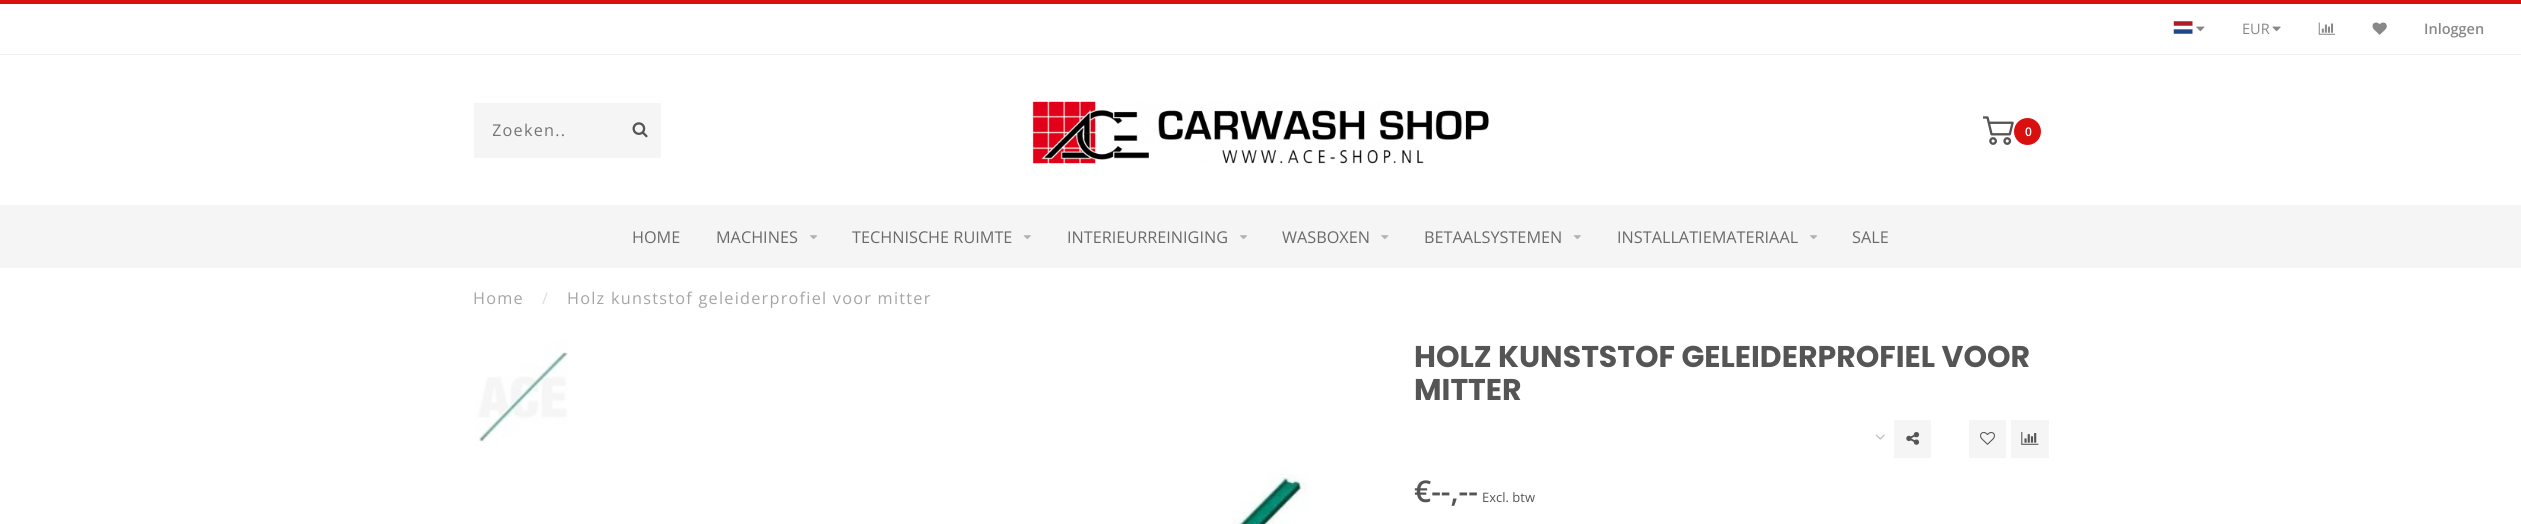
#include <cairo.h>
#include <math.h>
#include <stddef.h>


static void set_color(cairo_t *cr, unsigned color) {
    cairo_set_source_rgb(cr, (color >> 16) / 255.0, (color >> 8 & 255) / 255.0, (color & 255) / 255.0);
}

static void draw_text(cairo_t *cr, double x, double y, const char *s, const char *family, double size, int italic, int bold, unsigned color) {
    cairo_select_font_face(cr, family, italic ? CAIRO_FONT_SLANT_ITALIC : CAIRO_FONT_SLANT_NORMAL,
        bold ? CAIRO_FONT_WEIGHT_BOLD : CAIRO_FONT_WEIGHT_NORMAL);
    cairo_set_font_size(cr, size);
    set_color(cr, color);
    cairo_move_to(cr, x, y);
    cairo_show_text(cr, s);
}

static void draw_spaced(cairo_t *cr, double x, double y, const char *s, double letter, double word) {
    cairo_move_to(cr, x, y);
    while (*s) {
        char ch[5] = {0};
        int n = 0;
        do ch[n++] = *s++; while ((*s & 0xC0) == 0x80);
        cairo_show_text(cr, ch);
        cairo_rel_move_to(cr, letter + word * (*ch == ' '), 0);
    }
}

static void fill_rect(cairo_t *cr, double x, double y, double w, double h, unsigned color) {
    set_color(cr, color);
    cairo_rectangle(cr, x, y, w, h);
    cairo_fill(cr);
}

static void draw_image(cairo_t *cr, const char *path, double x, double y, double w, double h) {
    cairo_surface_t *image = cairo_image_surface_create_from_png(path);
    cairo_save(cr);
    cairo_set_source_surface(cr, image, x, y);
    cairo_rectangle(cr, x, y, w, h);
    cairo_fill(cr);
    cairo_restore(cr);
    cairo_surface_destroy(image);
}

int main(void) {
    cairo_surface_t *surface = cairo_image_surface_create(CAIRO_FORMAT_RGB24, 2521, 524);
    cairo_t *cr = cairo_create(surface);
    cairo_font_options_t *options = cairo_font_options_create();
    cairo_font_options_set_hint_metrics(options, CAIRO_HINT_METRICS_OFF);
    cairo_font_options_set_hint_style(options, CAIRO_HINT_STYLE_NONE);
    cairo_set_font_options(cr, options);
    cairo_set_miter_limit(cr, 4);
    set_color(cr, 0xFFFFFF);
    cairo_paint(cr);
    fill_rect(cr, 0, 0, 2521, 4, 0xD91010);
    fill_rect(cr, 0, 54, 2521, 1, 0xEEEEEE);
    draw_image(cr, "assets/img1.png", 2173, 21, 20, 13);
    draw_image(cr, "assets/img2.png", 2196, 26, 9, 6);
    draw_text(cr, 2242, 34, "EUR", "Open Sans", 14.5, 0, 0, 0x888888);
    draw_image(cr, "assets/img3.png", 2272, 26, 9, 6);
    draw_image(cr, "assets/img4.png", 2318, 22, 18, 13);
    draw_image(cr, "assets/img5.png", 2372, 22, 15, 13);
    draw_text(cr, 2424, 34, "Inloggen", "Open Sans SemiBold", 14.5, 0, 0, 0x888888);
    fill_rect(cr, 474, 103, 187, 55, 0xF5F5F5);
    cairo_save(cr);
    cairo_rectangle(cr, 493, 119, 150, 22);
    cairo_clip(cr);
    cairo_select_font_face(cr, "Open Sans", CAIRO_FONT_SLANT_NORMAL, CAIRO_FONT_WEIGHT_NORMAL);
    cairo_set_font_size(cr, 16.25);
    set_color(cr, 0x757575);
    draw_spaced(cr, 492, 136, "Zoeken..", 1.25, 0);
    cairo_restore(cr);
    draw_image(cr, "assets/img6.png", 632, 122, 16, 16);
    draw_image(cr, "assets/img7.png", 1032, 101, 457, 63);
    draw_image(cr, "assets/img8.png", 1983, 116, 31, 29);
    set_color(cr, 0xD91010);
    cairo_arc(cr, 2027.5, 131.5, 13.5, 0, 2 * M_PI);
    cairo_fill(cr);
    draw_text(cr, 2025, 136, "0", "Open Sans SemiBold", 12, 0, 0, 0xFFFFFF);
    fill_rect(cr, 0, 205, 2521, 63, 0xF5F5F5);
    draw_text(cr, 632, 243, "HOME", "Open Sans", 16.25, 0, 0, 0x6A6A6A);
    draw_text(cr, 716, 243, "MACHINES", "Open Sans", 16.25, 0, 0, 0x6A6A6A);
    draw_image(cr, "assets/img9.png", 810, 235, 7, 5);
    draw_text(cr, 852, 243, "TECHNISCHE RUIMTE", "Open Sans", 16.25, 0, 0, 0x6A6A6A);
    draw_image(cr, "assets/img10.png", 1023, 235, 8, 5);
    draw_text(cr, 1067, 243, "INTERIEURREINIGING", "Open Sans", 16.25, 0, 0, 0x6A6A6A);
    draw_image(cr, "assets/img9.png", 1240, 235, 7, 5);
    draw_text(cr, 1282, 243, "WASBOXEN", "Open Sans", 16.25, 0, 0, 0x6A6A6A);
    draw_image(cr, "assets/img11.png", 1381, 235, 8, 5);
    draw_text(cr, 1424, 243, "BETAALSYSTEMEN", "Open Sans", 16.25, 0, 0, 0x6A6A6A);
    draw_image(cr, "assets/img10.png", 1573, 235, 8, 5);
    draw_text(cr, 1617, 243, "INSTALLATIEMATERIAAL", "Open Sans", 16.25, 0, 0, 0x6A6A6A);
    draw_image(cr, "assets/img9.png", 1810, 235, 7, 5);
    draw_text(cr, 1852, 243, "SALE", "Open Sans", 16.25, 0, 0, 0x6A6A6A);
    set_color(cr, 0xA5A5A5);
    draw_spaced(cr, 473, 304, "Home", 1.25, 0);
    set_color(cr, 0xDDDDDD);
    draw_spaced(cr, 542, 304, "/", 1.25, 0);
    set_color(cr, 0xA5A5A5);
    draw_spaced(cr, 567, 304, "Holz kunststof geleiderprofiel voor mitter", 1.25, 0);
    draw_image(cr, "assets/img12.png", 475, 341, 93, 105);
    draw_image(cr, "assets/img13.png", 1232, 474, 76, 50);
    draw_text(cr, 1414, 367, "HOLZ KUNSTSTOF GELEIDERPROFIEL VOOR", "Poppins", 30, 0, 1, 0x555555);
    draw_text(cr, 1414, 400, "MITTER", "Poppins", 30, 0, 1, 0x555555);
    draw_image(cr, "assets/img14.png", 1875, 434, 10, 6);
    fill_rect(cr, 1894, 420, 37, 38, 0xF5F5F5);
    draw_image(cr, "assets/img15.png", 1906, 432, 14, 13);
    fill_rect(cr, 1969, 420, 37, 38, 0xF5F5F5);
    draw_image(cr, "assets/img16.png", 1980, 432, 15, 13);
    fill_rect(cr, 2011, 420, 38, 38, 0xF5F5F5);
    draw_image(cr, "assets/img17.png", 2021, 432, 18, 13);
    draw_text(cr, 1414, 502, "€--,--", "Open Sans SemiBold", 30, 0, 0, 0x555555);
    draw_text(cr, 1482, 502, "Excl. btw", "Open Sans", 13, 0, 0, 0x555555);
    cairo_surface_write_to_png(surface, "output.png");
    cairo_font_options_destroy(options);
    cairo_destroy(cr);
    cairo_surface_destroy(surface);
    return 0;
}
